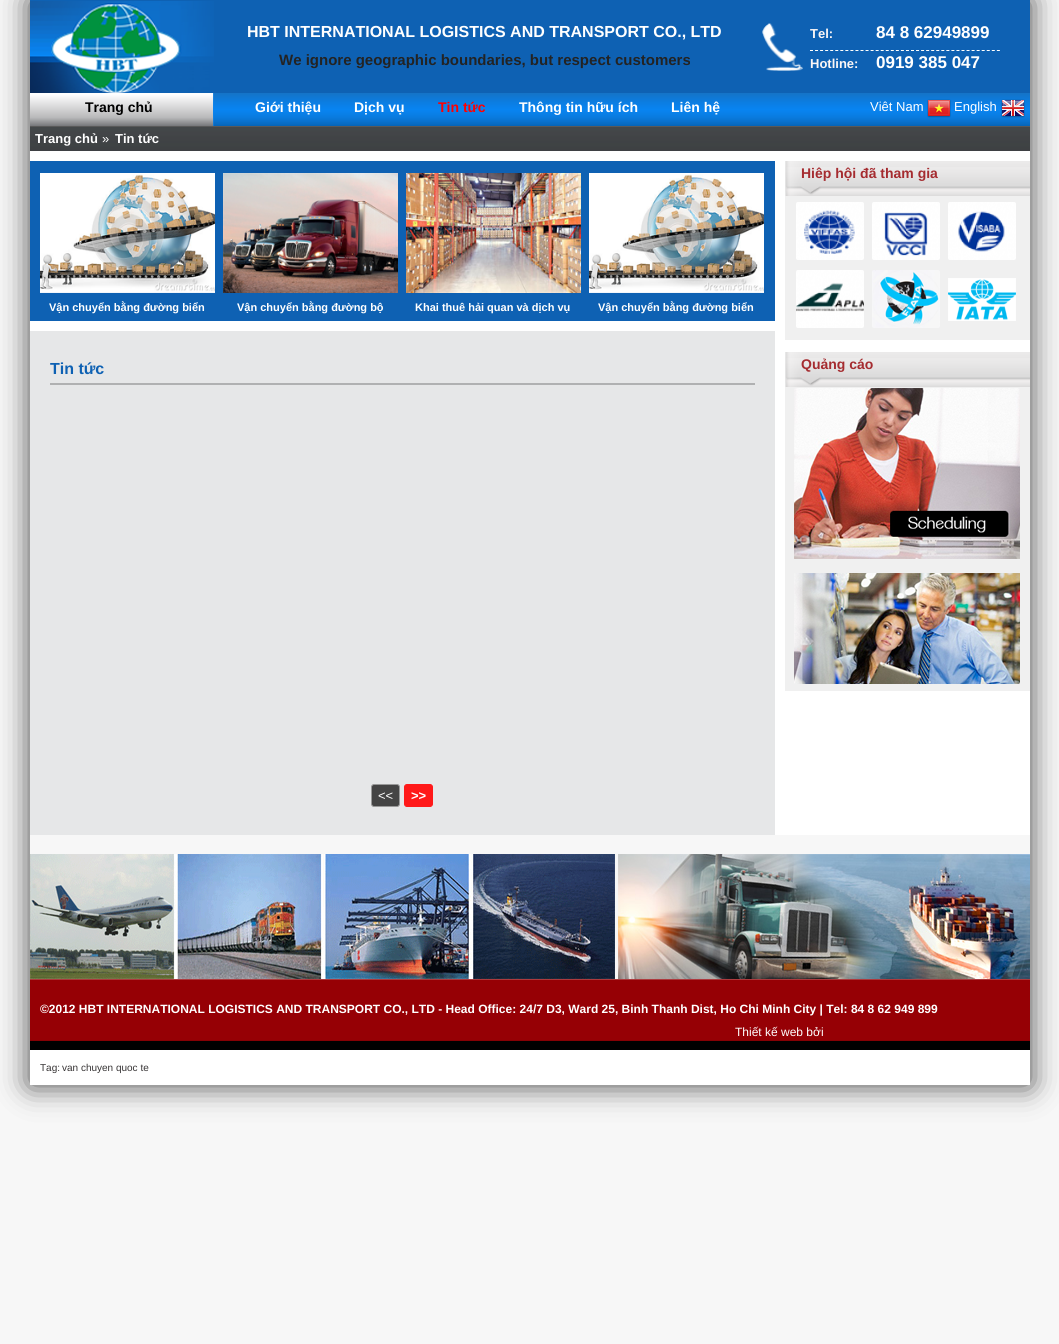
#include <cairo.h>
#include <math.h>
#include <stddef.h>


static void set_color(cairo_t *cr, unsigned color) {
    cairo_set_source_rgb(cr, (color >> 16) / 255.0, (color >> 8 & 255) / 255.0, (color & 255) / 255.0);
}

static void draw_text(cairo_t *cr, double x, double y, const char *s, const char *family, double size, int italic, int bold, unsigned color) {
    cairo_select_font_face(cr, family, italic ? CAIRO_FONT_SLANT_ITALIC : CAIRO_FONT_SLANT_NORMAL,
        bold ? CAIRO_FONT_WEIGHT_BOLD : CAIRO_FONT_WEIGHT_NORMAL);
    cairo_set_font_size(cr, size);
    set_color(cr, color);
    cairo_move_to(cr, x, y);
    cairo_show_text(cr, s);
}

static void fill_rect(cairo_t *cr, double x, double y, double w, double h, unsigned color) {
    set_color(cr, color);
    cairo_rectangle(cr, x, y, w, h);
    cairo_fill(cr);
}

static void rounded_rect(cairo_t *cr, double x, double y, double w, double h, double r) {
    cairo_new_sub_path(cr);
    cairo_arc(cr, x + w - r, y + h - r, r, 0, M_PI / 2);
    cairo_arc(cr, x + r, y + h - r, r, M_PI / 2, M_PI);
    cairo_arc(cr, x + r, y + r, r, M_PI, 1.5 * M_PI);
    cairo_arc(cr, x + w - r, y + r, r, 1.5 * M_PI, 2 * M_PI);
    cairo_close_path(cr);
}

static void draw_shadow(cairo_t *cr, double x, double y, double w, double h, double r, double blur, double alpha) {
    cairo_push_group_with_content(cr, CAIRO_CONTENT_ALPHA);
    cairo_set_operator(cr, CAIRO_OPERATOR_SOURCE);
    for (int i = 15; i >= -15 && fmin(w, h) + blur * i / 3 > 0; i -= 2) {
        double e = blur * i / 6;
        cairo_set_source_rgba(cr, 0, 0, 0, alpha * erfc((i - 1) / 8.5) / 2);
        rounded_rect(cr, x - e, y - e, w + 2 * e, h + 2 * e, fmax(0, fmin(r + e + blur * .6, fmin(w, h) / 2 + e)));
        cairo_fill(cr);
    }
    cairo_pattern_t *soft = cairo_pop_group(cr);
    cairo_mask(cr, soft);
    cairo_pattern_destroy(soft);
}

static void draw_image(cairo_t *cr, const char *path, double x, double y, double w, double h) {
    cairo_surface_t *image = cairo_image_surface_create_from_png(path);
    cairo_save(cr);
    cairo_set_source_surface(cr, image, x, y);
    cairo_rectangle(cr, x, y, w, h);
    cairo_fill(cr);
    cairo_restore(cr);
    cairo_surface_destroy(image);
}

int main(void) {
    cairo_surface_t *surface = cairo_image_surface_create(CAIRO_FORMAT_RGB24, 1059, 1344);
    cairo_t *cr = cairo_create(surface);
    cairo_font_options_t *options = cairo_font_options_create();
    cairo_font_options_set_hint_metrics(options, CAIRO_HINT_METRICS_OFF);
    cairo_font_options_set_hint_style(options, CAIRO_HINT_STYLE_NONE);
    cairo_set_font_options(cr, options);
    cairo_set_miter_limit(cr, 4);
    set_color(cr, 0xF7F7F7);
    cairo_paint(cr);
    cairo_save(cr);
    cairo_set_fill_rule(cr, CAIRO_FILL_RULE_EVEN_ODD);
    cairo_new_path(cr);
    cairo_move_to(cr, 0, 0);
    cairo_line_to(cr, 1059, 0);
    cairo_line_to(cr, 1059, 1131);
    cairo_line_to(cr, 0, 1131);
    cairo_close_path(cr);
    cairo_move_to(cr, 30, 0);
    cairo_line_to(cr, 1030, 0);
    cairo_line_to(cr, 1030, 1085);
    cairo_line_to(cr, 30, 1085);
    cairo_close_path(cr);
    cairo_clip(cr);
    set_color(cr, 0x323232);
    draw_shadow(cr, 30, 0, 1000, 1085, 0, 15, 0.91);
    cairo_restore(cr);
    fill_rect(cr, 30, 0, 1000, 93, 0x0E61B3);
    draw_image(cr, "assets/img1.png", 30, 1, 184, 92);
    draw_text(cr, 247, 37, "HBT INTERNATIONAL LOGISTICS AND TRANSPORT CO., LTD", "Liberation Sans", 16, 0, 1, 0xFFFFFF);
    draw_text(cr, 279, 65, "We ignore geographic boundaries, but respect customers", "Liberation Sans", 15, 0, 1, 0x232323);
    draw_image(cr, "assets/img2.png", 762, 23, 41, 48);
    draw_text(cr, 810, 38, "Tel:", "Liberation Sans", 13, 0, 1, 0xFBF6F6);
    draw_text(cr, 876, 38, "84 8 62949899", "Liberation Sans", 17, 0, 1, 0xFFFFFF);
    cairo_new_path(cr);
    cairo_move_to(cr, 810, 50.5);
    cairo_line_to(cr, 1000, 50.5);
    cairo_set_line_width(cr, 1);
    cairo_set_dash(cr, (double[]){3, 2.05}, 2, 0);
    cairo_stroke(cr);
    draw_text(cr, 810, 68, "Hotline:", "Liberation Sans", 13, 0, 1, 0xFBF6F6);
    draw_text(cr, 876, 68, "0919 385 047", "Liberation Sans", 17, 0, 1, 0xFFFFFF);
    fill_rect(cr, 30, 93, 1000, 742, 0xFFFFFF);
    draw_image(cr, "assets/img3.png", 30, 93, 1000, 33);
    draw_text(cr, 85, 112, "Trang chủ", "Liberation Sans", 14, 0, 1, 0x000000);
    draw_text(cr, 255, 112, "Giới thiệu", "Liberation Sans", 14, 0, 1, 0xFFFFFF);
    draw_text(cr, 354, 112, "Dịch vụ", "Liberation Sans", 14, 0, 1, 0xFFFFFF);
    draw_text(cr, 438, 112, "Tin tức", "Liberation Sans", 14, 0, 1, 0xFF0000);
    draw_text(cr, 519, 112, "Thông tin hữu ích", "Liberation Sans", 14, 0, 1, 0xFFFFFF);
    draw_text(cr, 671, 112, "Liên hệ", "Liberation Sans", 14, 0, 1, 0xFFFFFF);
    draw_text(cr, 870, 111, "Viêt Nam", "Liberation Sans", 13, 0, 0, 0xFFFFFF);
    draw_image(cr, "assets/img4.png", 927, 99, 24, 19);
    draw_text(cr, 954, 111, "English", "Liberation Sans", 13, 0, 0, 0xFFFFFF);
    draw_image(cr, "assets/img5.png", 1001, 99, 24, 19);
    draw_image(cr, "assets/img6.png", 30, 126, 1000, 25);
    draw_text(cr, 35, 143, "Trang chủ", "Liberation Sans", 13, 0, 1, 0xFFFFFF);
    draw_text(cr, 102, 143, "»", "Liberation Sans", 13, 0, 0, 0xFFFFFF);
    draw_text(cr, 115, 143, "Tin tức", "Liberation Sans", 13, 0, 1, 0xFFFFFF);
    fill_rect(cr, 30, 161, 745, 160, 0x0E61B3);
    draw_image(cr, "assets/img7.png", 40, 173, 175, 120);
    draw_text(cr, 49, 311, "Vận chuyển bằng đường biển", "Liberation Sans", 11, 0, 1, 0xFFFFFF);
    draw_image(cr, "assets/img8.png", 223, 173, 175, 120);
    draw_text(cr, 237, 311, "Vận chuyển bằng đường bộ", "Liberation Sans", 11, 0, 1, 0xFFFFFF);
    draw_image(cr, "assets/img9.png", 406, 173, 175, 120);
    draw_text(cr, 415, 311, "Khai thuê hải quan và dịch vụ", "Liberation Sans", 11, 0, 1, 0xFFFFFF);
    draw_image(cr, "assets/img7.png", 589, 173, 175, 120);
    draw_text(cr, 598, 311, "Vận chuyển bằng đường biển", "Liberation Sans", 11, 0, 1, 0xFFFFFF);
    fill_rect(cr, 785, 161, 245, 179, 0xF0F0F0);
    draw_image(cr, "assets/img10.png", 785, 161, 245, 35);
    draw_text(cr, 801, 178, "Hiêp hội đã tham gia", "Liberation Sans", 14, 0, 1, 0xA52C30);
    draw_image(cr, "assets/img11.png", 796, 202, 68, 58);
    draw_image(cr, "assets/img12.png", 872, 202, 68, 58);
    draw_image(cr, "assets/img13.png", 948, 202, 68, 58);
    draw_image(cr, "assets/img14.png", 796, 270, 68, 58);
    draw_image(cr, "assets/img15.png", 872, 270, 68, 58);
    draw_image(cr, "assets/img16.png", 948, 278, 68, 43);
    fill_rect(cr, 785, 352, 245, 339, 0xF0F0F0);
    draw_image(cr, "assets/img10.png", 785, 352, 245, 35);
    draw_text(cr, 801, 369, "Quảng cáo", "Liberation Sans", 14, 0, 1, 0xA52C30);
    draw_image(cr, "assets/img17.png", 794, 388, 226, 296);
    fill_rect(cr, 30, 331, 745, 504, 0xE6E7E8);
    fill_rect(cr, 50, 383, 705, 2, 0xB0B1B2);
    draw_text(cr, 50, 374, "Tin tức", "Liberation Sans", 16, 0, 1, 0x0E61B3);
    set_color(cr, 0x444444);
    rounded_rect(cr, 371.5, 784.5, 28, 22, 2.5);
    cairo_fill_preserve(cr);
    set_color(cr, 0x999999);
    cairo_set_dash(cr, NULL, 0, 0);
    cairo_stroke(cr);
    draw_text(cr, 378, 800, "<<", "Liberation Sans", 13, 0, 0, 0xFFFFFF);
    set_color(cr, 0xFF1919);
    rounded_rect(cr, 404.5, 784.5, 28, 22, 2.5);
    cairo_fill_preserve(cr);
    cairo_stroke(cr);
    draw_text(cr, 411, 800, ">>", "Liberation Sans", 13, 0, 1, 0xFFFFFF);
    draw_image(cr, "assets/img18.png", 30, 854, 1000, 125);
    draw_image(cr, "assets/img19.png", 30, 979, 1000, 71);
    draw_text(cr, 40, 1013, "©2012 HBT INTERNATIONAL LOGISTICS AND TRANSPORT CO., LTD - Head Office: 24/7 D3, Ward 25, Binh Thanh Dist, Ho Chi Minh City | Tel: 84 8 62 949 899", "Liberation Sans", 12, 0, 1, 0xFFFFFF);
    draw_text(cr, 735, 1036, "Thiết kế web bởi", "Liberation Sans", 12, 0, 0, 0xFFFFFF);
    fill_rect(cr, 30, 1050, 1000, 35, 0xFFFFFF);
    draw_text(cr, 40, 1071, "Tag:", "Liberation Sans", 10, 0, 0, 0x373435);
    draw_text(cr, 62, 1071, "van chuyen quoc te", "Liberation Sans", 10, 0, 0, 0x373435);
    cairo_surface_write_to_png(surface, "output.png");
    cairo_font_options_destroy(options);
    cairo_destroy(cr);
    cairo_surface_destroy(surface);
    return 0;
}
